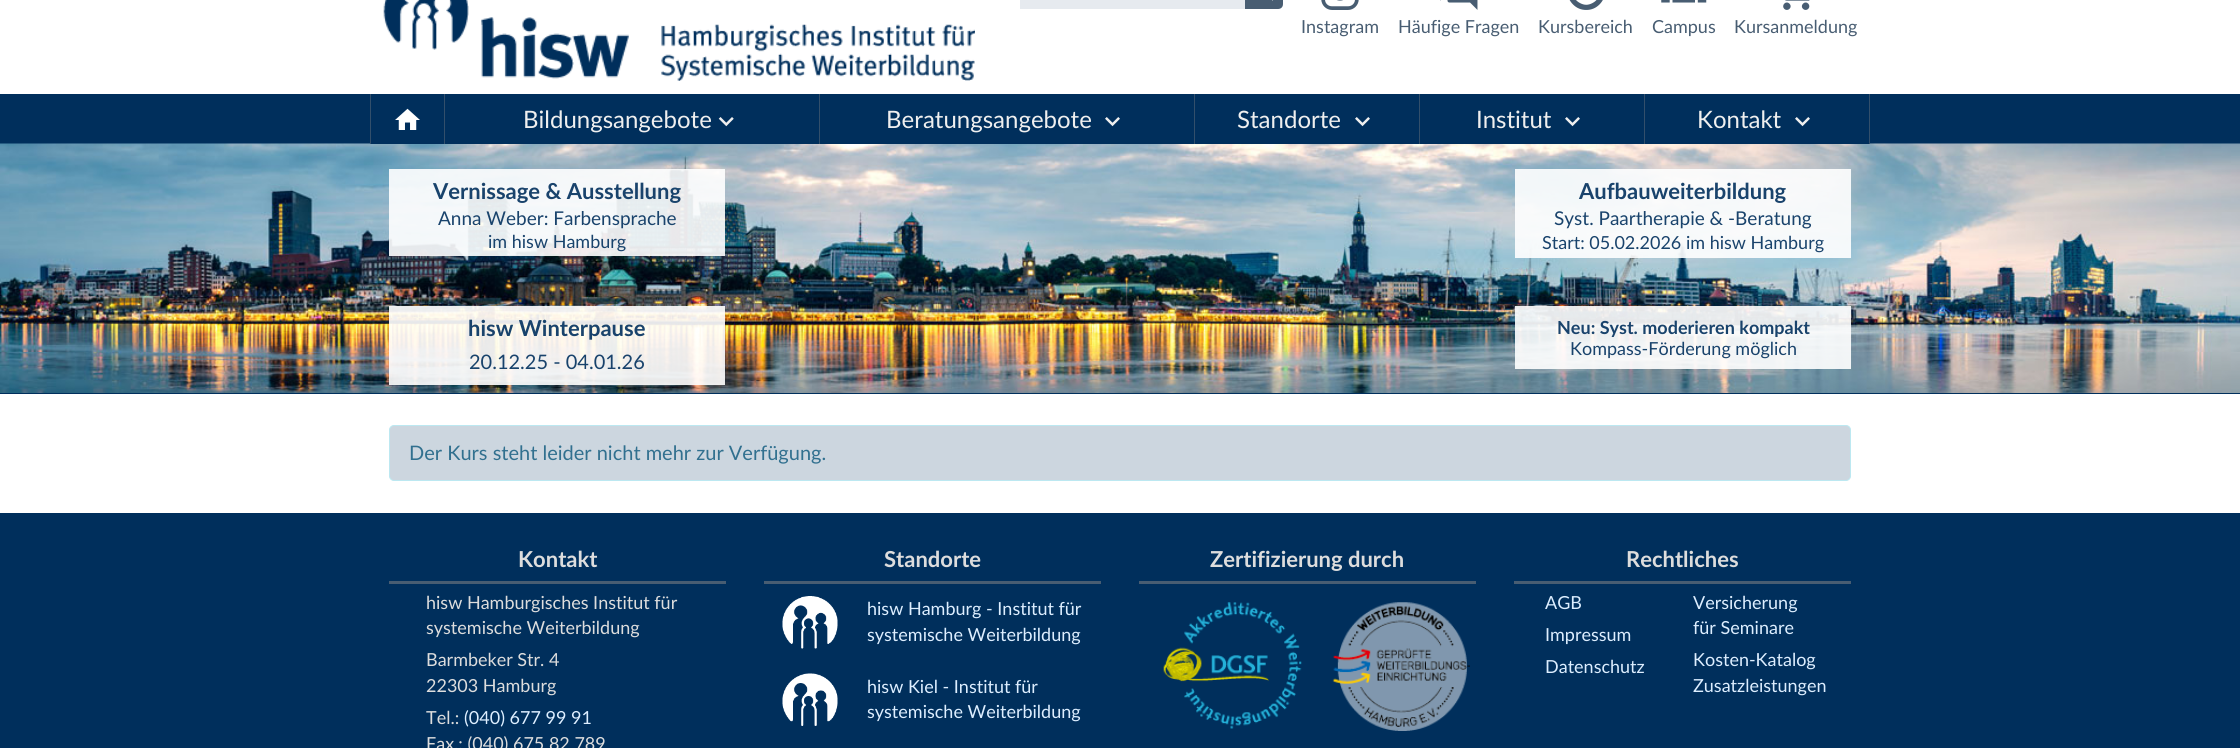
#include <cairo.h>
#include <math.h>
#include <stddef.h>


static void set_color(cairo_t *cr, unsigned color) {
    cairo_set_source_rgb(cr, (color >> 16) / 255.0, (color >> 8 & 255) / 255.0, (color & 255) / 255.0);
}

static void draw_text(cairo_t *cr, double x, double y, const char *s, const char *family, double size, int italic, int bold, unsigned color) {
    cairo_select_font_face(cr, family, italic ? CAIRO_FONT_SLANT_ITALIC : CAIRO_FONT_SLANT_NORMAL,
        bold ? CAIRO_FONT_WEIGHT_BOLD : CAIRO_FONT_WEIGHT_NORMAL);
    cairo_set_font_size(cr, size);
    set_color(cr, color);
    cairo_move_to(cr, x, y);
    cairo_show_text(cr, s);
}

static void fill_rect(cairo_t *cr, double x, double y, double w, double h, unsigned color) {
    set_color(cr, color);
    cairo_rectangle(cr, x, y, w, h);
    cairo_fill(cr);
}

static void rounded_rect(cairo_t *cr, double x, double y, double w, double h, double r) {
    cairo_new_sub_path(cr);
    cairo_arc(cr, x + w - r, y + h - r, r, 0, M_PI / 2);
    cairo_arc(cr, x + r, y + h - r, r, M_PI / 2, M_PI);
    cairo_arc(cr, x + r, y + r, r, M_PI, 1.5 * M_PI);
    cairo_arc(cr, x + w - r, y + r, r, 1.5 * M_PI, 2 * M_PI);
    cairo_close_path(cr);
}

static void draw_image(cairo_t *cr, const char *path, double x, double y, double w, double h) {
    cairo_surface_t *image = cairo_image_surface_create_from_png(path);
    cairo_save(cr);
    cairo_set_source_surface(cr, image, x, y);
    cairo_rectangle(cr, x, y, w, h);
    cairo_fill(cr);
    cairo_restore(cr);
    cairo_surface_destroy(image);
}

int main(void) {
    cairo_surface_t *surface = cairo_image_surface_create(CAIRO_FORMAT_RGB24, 2240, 748);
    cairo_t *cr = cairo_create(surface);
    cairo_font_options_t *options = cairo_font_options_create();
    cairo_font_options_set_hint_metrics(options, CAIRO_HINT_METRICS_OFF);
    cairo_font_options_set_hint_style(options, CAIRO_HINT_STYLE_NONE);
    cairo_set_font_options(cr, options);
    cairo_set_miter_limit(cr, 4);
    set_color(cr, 0xFFFFFF);
    cairo_paint(cr);
    draw_image(cr, "assets/img1.png", 383, 0, 592, 81);
    fill_rect(cr, 1020, 0, 225, 9, 0xE6EAEF);
    set_color(cr, 0x485D72);
    cairo_new_path(cr);
    cairo_move_to(cr, 1245, -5);
    cairo_line_to(cr, 1278, -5);
    cairo_curve_to(cr, 1281, -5, 1283, -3, 1283, 0);
    cairo_line_to(cr, 1283, 4);
    cairo_curve_to(cr, 1283, 7, 1281, 9, 1278, 9);
    cairo_line_to(cr, 1245, 9);
    cairo_close_path(cr);
    cairo_fill(cr);
    fill_rect(cr, 1272, 0, 1, 1, 0x8896A3);
    draw_image(cr, "assets/img2.png", 1321, 0, 38, 10);
    draw_text(cr, 1301, 33, "Instagram", "Lato", 18, 0, 0, 0x485D72);
    draw_image(cr, "assets/img3.png", 1440, 0, 38, 10);
    draw_text(cr, 1398, 33, "Häufige Fragen", "Lato", 18, 0, 0, 0x485D72);
    draw_image(cr, "assets/img4.png", 1569, 0, 34, 10);
    draw_text(cr, 1538, 33, "Kursbereich", "Lato", 18, 0, 0, 0x485D72);
    draw_image(cr, "assets/img5.png", 1661, 0, 46, 3);
    draw_text(cr, 1652, 33, "Campus", "Lato", 18, 0, 0, 0x485D72);
    draw_image(cr, "assets/img6.png", 1783, 0, 27, 10);
    draw_text(cr, 1734, 33, "Kursanmeldung", "Lato", 18, 0, 0, 0x485D72);
    fill_rect(cr, 0, 94, 2240, 50, 0x002F5C);
    draw_image(cr, "assets/img10.png", 0, 143, 2240, 250);
    fill_rect(cr, 371, 143, 73, 1, 0x002F5C);
    fill_rect(cr, 444, 94, 1, 50, 0x324F6B);
    fill_rect(cr, 370, 94, 1, 50, 0x324F6B);
    draw_image(cr, "assets/img7.png", 395, 108, 25, 22);
    fill_rect(cr, 445, 143, 374, 1, 0x002F5C);
    fill_rect(cr, 819, 94, 1, 50, 0x324F6B);
    draw_text(cr, 523, 128, "Bildungsangebote", "Lato", 24, 0, 0, 0xEFEFEF);
    draw_image(cr, "assets/img8.png", 718, 117, 16, 10);
    fill_rect(cr, 820, 143, 374, 1, 0x002F5C);
    fill_rect(cr, 1194, 94, 1, 50, 0x324F6B);
    draw_text(cr, 886, 128, "Beratungsangebote", "Lato", 24, 0, 0, 0xEFEFEF);
    draw_image(cr, "assets/img9.png", 1105, 117, 15, 10);
    fill_rect(cr, 1195, 143, 224, 1, 0x002F5C);
    fill_rect(cr, 1419, 94, 1, 50, 0x324F6B);
    draw_text(cr, 1237, 128, "Standorte", "Lato", 24, 0, 0, 0xEFEFEF);
    draw_image(cr, "assets/img9.png", 1355, 117, 15, 10);
    fill_rect(cr, 1420, 143, 224, 1, 0x002F5C);
    fill_rect(cr, 1644, 94, 1, 50, 0x324F6B);
    draw_text(cr, 1476, 128, "Institut", "Lato", 24, 0, 0, 0xEFEFEF);
    draw_image(cr, "assets/img9.png", 1565, 117, 15, 10);
    fill_rect(cr, 1645, 143, 224, 1, 0x002F5C);
    fill_rect(cr, 1869, 94, 1, 50, 0x324F6B);
    draw_text(cr, 1697, 128, "Kontakt", "Lato", 24, 0, 0, 0xEFEFEF);
    draw_image(cr, "assets/img9.png", 1795, 117, 15, 10);
    fill_rect(cr, 0, 393, 2240, 1, 0x002F5C);
    cairo_set_source_rgba(cr, 1, 1, 1, 0.9);
    cairo_rectangle(cr, 389, 169, 336, 87);
    cairo_fill(cr);
    draw_text(cr, 433, 199, "Vernissage & Ausstellung", "Lato", 22, 0, 1, 0x19436C);
    draw_text(cr, 438, 225, "Anna Weber: Farbensprache", "Lato", 19, 0, 0, 0x19436C);
    draw_text(cr, 488, 248, "im hisw Hamburg", "Lato", 18, 0, 0, 0x19436C);
    cairo_set_source_rgba(cr, 1, 1, 1, 0.9);
    cairo_rectangle(cr, 1515, 169, 336, 89);
    cairo_fill(cr);
    draw_text(cr, 1579, 199, "Aufbauweiterbildung", "Lato", 22, 0, 1, 0x19436C);
    draw_text(cr, 1554, 225, "Syst. Paartherapie & -Beratung", "Lato", 19, 0, 0, 0x19436C);
    draw_text(cr, 1542, 249, "Start: 05.02.2026 im hisw Hamburg", "Lato", 18, 0, 0, 0x19436C);
    cairo_set_source_rgba(cr, 1, 1, 1, 0.9);
    cairo_rectangle(cr, 389, 306, 336, 79);
    cairo_fill(cr);
    draw_text(cr, 468, 336, "hisw Winterpause", "Lato", 22, 0, 1, 0x19436C);
    draw_text(cr, 469, 369, "20.12.25 - 04.01.26", "Lato", 20, 0, 0, 0x19436C);
    cairo_set_source_rgba(cr, 1, 1, 1, 0.9);
    cairo_rectangle(cr, 1515, 306, 336, 63);
    cairo_fill(cr);
    draw_text(cr, 1557, 334, "Neu: Syst. moderieren kompakt", "Lato", 18, 0, 1, 0x19436C);
    draw_text(cr, 1570, 355, "Kompass-Förderung möglich", "Lato", 18, 0, 0, 0x19436C);
    set_color(cr, 0xCCD6DF);
    rounded_rect(cr, 389.5, 425.5, 1461, 55, 4.5);
    cairo_fill_preserve(cr);
    set_color(cr, 0xBCE8F1);
    cairo_set_line_width(cr, 1);
    cairo_stroke(cr);
    draw_text(cr, 409, 460, "Der Kurs steht leider nicht mehr zur Verfügung.", "Lato", 20, 0, 0, 0x31708F);
    fill_rect(cr, 0, 513, 2240, 235, 0x002F5C);
    fill_rect(cr, 389, 581, 337, 3, 0x485D72);
    draw_text(cr, 518, 567, "Kontakt", "Lato", 22, 0, 1, 0xDDDDDD);
    draw_text(cr, 426, 609, "hisw Hamburgisches Institut für", "Lato", 18, 0, 0, 0xDDDDDD);
    draw_text(cr, 426, 634, "systemische Weiterbildung", "Lato", 18, 0, 0, 0xDDDDDD);
    draw_text(cr, 426, 666, "Barmbeker Str. 4", "Lato", 18, 0, 0, 0xDDDDDD);
    draw_text(cr, 426, 692, "22303 Hamburg", "Lato", 18, 0, 0, 0xDDDDDD);
    draw_text(cr, 426, 724, "Tel.:", "Lato", 18, 0, 0, 0xDDDDDD);
    draw_text(cr, 464, 724, "(040) 677 99 91", "Lato", 18, 0, 0, 0xDDEEFF);
    draw_text(cr, 426, 750, "Fax.: (040) 675 82 789", "Lato", 18, 0, 0, 0xDDDDDD);
    fill_rect(cr, 764, 581, 337, 3, 0x485D72);
    draw_text(cr, 884, 567, "Standorte", "Lato", 22, 0, 1, 0xDDDDDD);
    draw_image(cr, "assets/img11.png", 782, 596, 56, 53);
    draw_text(cr, 867, 615, "hisw Hamburg - Institut für", "Lato", 18, 0, 0, 0xDDEEFF);
    draw_text(cr, 867, 641, "systemische Weiterbildung", "Lato", 18, 0, 0, 0xDDEEFF);
    draw_image(cr, "assets/img12.png", 782, 673, 56, 53);
    draw_text(cr, 867, 693, "hisw Kiel - Institut für", "Lato", 18, 0, 0, 0xDDEEFF);
    draw_text(cr, 867, 718, "systemische Weiterbildung", "Lato", 18, 0, 0, 0xDDEEFF);
    fill_rect(cr, 1139, 581, 337, 3, 0x485D72);
    draw_text(cr, 1210, 567, "Zertifizierung durch", "Lato", 22, 0, 1, 0xDDDDDD);
    draw_image(cr, "assets/img13.png", 1163, 602, 139, 127);
    draw_image(cr, "assets/img14.png", 1332, 602, 138, 129);
    fill_rect(cr, 1514, 581, 337, 3, 0x485D72);
    draw_text(cr, 1626, 567, "Rechtliches", "Lato", 22, 0, 1, 0xDDDDDD);
    draw_text(cr, 1545, 609, "AGB", "Lato", 18, 0, 0, 0xDDEEFF);
    draw_text(cr, 1545, 641, "Impressum", "Lato", 18, 0, 0, 0xDDEEFF);
    draw_text(cr, 1545, 673, "Datenschutz", "Lato", 18, 0, 0, 0xDDEEFF);
    draw_text(cr, 1693, 609, "Versicherung", "Lato", 18, 0, 0, 0xDDEEFF);
    draw_text(cr, 1693, 634, "für Seminare", "Lato", 18, 0, 0, 0xDDEEFF);
    draw_text(cr, 1693, 666, "Kosten-Katalog", "Lato", 18, 0, 0, 0xDDEEFF);
    draw_text(cr, 1693, 692, "Zusatzleistungen", "Lato", 18, 0, 0, 0xDDEEFF);
    cairo_surface_write_to_png(surface, "output.png");
    cairo_font_options_destroy(options);
    cairo_destroy(cr);
    cairo_surface_destroy(surface);
    return 0;
}
